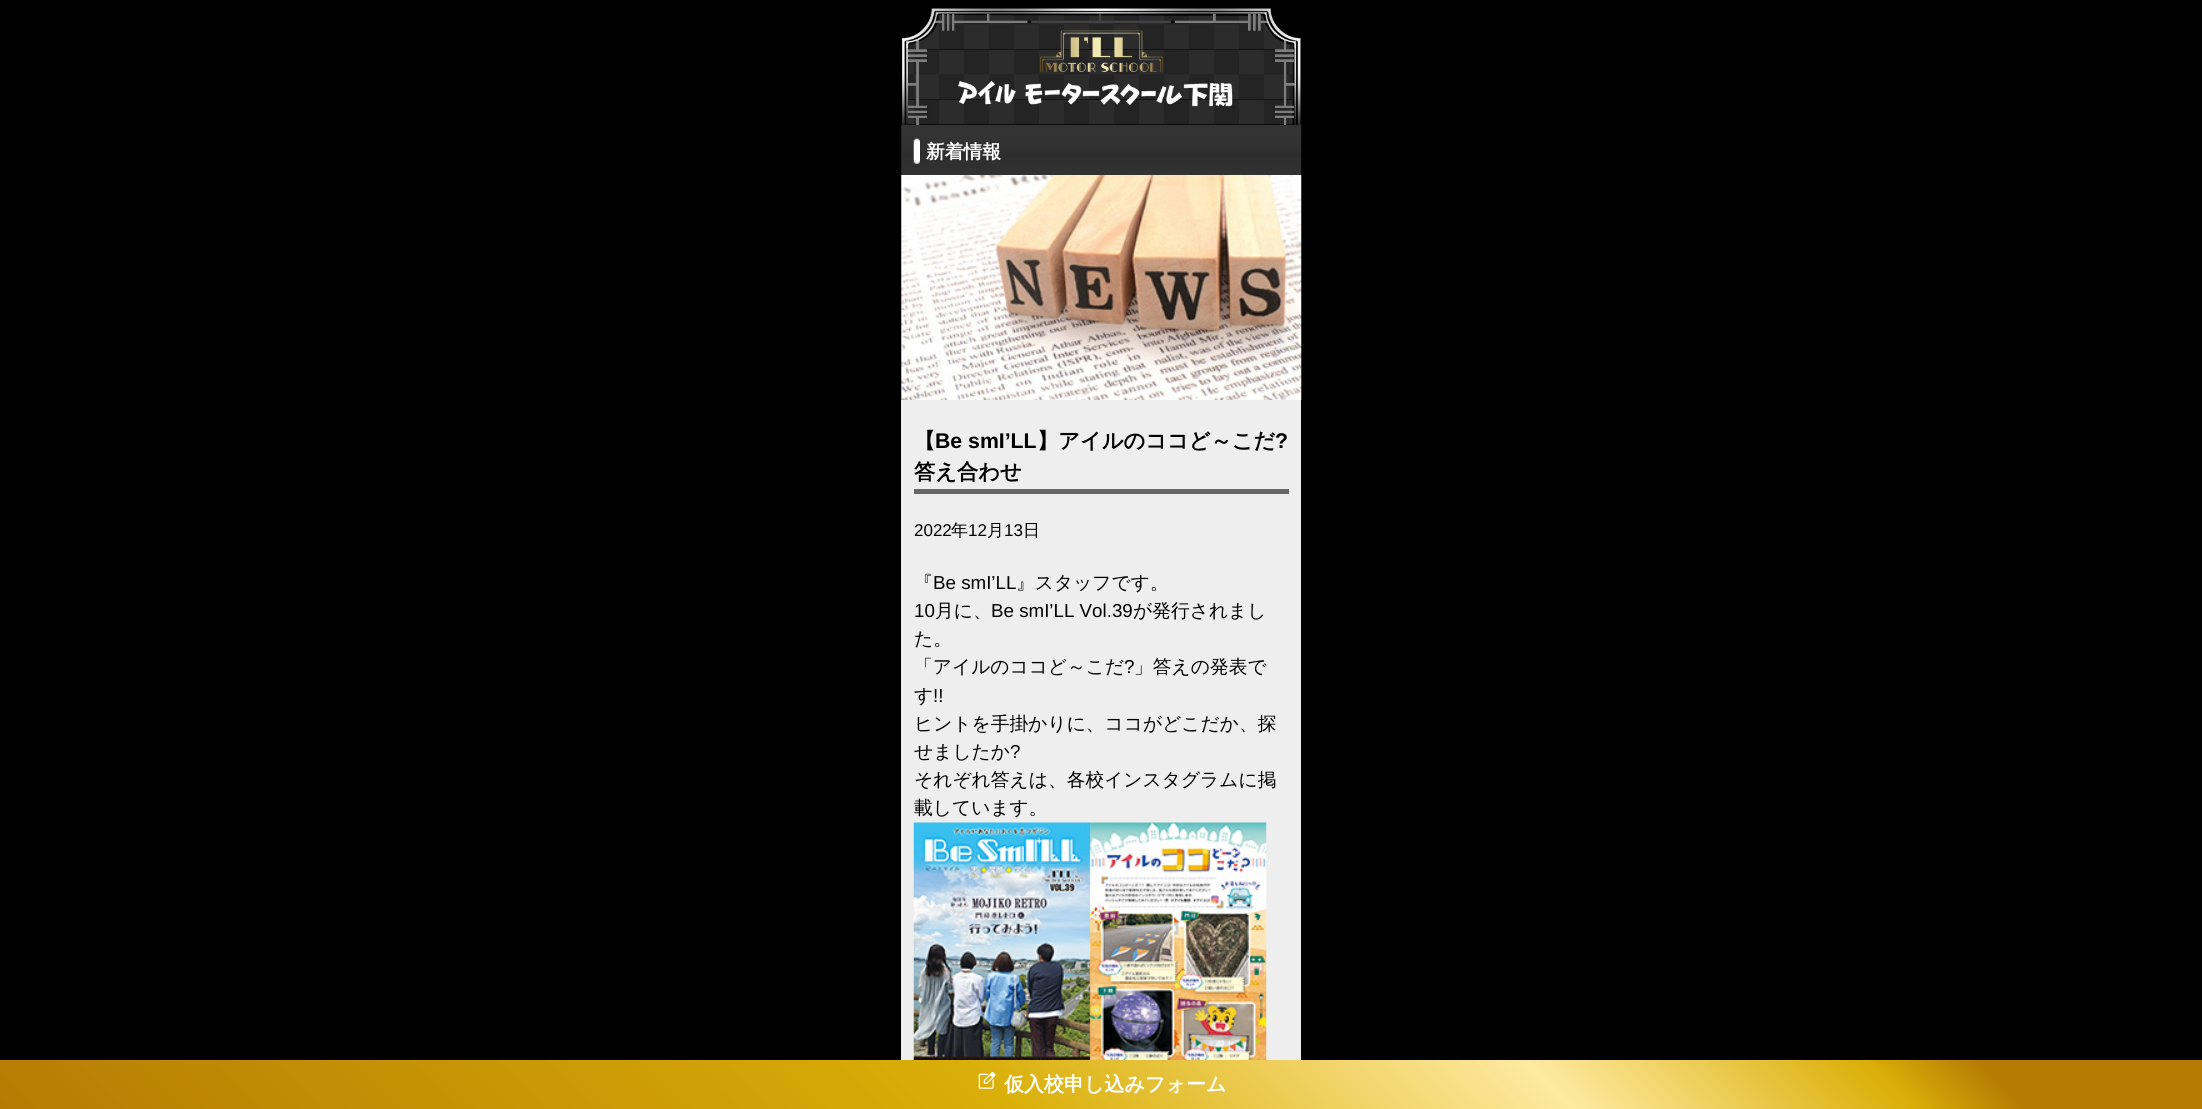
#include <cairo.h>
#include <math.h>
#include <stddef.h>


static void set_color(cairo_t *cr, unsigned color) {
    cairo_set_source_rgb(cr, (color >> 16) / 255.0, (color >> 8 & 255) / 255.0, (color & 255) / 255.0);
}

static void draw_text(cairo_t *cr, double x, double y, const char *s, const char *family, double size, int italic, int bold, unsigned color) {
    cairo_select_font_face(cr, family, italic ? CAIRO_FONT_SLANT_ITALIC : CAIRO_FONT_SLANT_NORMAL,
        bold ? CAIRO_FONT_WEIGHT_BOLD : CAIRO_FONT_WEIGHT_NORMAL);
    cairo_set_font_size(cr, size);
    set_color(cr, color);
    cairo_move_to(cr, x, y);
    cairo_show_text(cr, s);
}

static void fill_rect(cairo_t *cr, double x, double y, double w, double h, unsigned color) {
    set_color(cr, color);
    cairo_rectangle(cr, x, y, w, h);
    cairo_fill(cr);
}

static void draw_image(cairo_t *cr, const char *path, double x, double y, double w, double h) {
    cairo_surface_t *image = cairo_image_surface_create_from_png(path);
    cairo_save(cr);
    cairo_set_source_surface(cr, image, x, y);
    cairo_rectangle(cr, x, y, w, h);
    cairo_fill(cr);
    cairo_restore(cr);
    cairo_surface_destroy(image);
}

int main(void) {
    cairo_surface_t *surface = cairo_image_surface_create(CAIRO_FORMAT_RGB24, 2202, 1109);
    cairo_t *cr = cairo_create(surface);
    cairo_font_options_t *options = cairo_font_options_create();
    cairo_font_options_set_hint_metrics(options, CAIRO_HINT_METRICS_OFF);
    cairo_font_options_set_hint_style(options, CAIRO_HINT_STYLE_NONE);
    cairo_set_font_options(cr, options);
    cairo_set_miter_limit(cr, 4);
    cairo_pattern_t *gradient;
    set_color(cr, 0x000000);
    cairo_paint(cr);
    draw_image(cr, "assets/img1.png", 902, 8, 399, 117);
    draw_image(cr, "assets/img2.png", 901, 125, 401, 50);
    draw_image(cr, "assets/img3.png", 913, 138, 7, 26);
    draw_text(cr, 926, 158, "新着情報", "WenQuanYi Zen Hei", 18.75, 0, 1, 0xFFFFFF);
    draw_image(cr, "assets/img4.png", 901, 175, 401, 225);
    fill_rect(cr, 901, 400, 400, 660, 0xEEEEEE);
    fill_rect(cr, 914, 489, 375, 5, 0x666666);
    draw_text(cr, 914, 448, "【", "WenQuanYi Zen Hei", 21.25, 0, 1, 0x000000);
    draw_text(cr, 935, 448, "Be smI’LL", "Liberation Sans", 21.25, 0, 1, 0x000000);
    draw_text(cr, 1037, 448, "】アイルのココど～こだ", "WenQuanYi Zen Hei", 21.25, 0, 1, 0x000000);
    draw_text(cr, 1275, 448, "?", "Liberation Sans", 21.25, 0, 1, 0x000000);
    draw_text(cr, 914, 479, "答え合わせ", "WenQuanYi Zen Hei", 21.25, 0, 1, 0x000000);
    draw_text(cr, 914, 536, "2022", "Liberation Sans", 17, 0, 0, 0x000000);
    draw_text(cr, 951, 536, "年", "WenQuanYi Zen Hei Medium", 17, 0, 0, 0x000000);
    draw_text(cr, 968, 536, "12", "Liberation Sans", 17, 0, 0, 0x000000);
    draw_text(cr, 987, 536, "月", "WenQuanYi Zen Hei Medium", 17, 0, 0, 0x000000);
    draw_text(cr, 1004, 536, "13", "Liberation Sans", 17, 0, 0, 0x000000);
    draw_text(cr, 1023, 536, "日", "WenQuanYi Zen Hei Medium", 17, 0, 0, 0x000000);
    draw_text(cr, 914, 589, "『", "WenQuanYi Zen Hei Medium", 18.75, 0, 0, 0x000000);
    draw_text(cr, 933, 589, "Be smI’LL", "Liberation Sans", 18.75, 0, 0, 0x000000);
    draw_text(cr, 1016, 589, "』スタッフです。", "WenQuanYi Zen Hei Medium", 18.75, 0, 0, 0x000000);
    draw_text(cr, 914, 617, "10", "Liberation Sans", 18.75, 0, 0, 0x000000);
    draw_text(cr, 935, 617, "月に、", "WenQuanYi Zen Hei Medium", 18.75, 0, 0, 0x000000);
    draw_text(cr, 991, 617, "Be smI’LL Vol.39", "Liberation Sans", 18.75, 0, 0, 0x000000);
    draw_text(cr, 1133, 617, "が発行されまし", "WenQuanYi Zen Hei Medium", 18.75, 0, 0, 0x000000);
    draw_text(cr, 914, 645, "た。", "WenQuanYi Zen Hei Medium", 18.75, 0, 0, 0x000000);
    draw_text(cr, 914, 673, "「アイルのココど～こだ", "WenQuanYi Zen Hei Medium", 18.75, 0, 0, 0x000000);
    draw_text(cr, 1124, 673, "?", "Liberation Sans", 18.75, 0, 0, 0x000000);
    draw_text(cr, 1134, 673, "」答えの発表で", "WenQuanYi Zen Hei Medium", 18.75, 0, 0, 0x000000);
    draw_text(cr, 914, 702, "す", "WenQuanYi Zen Hei Medium", 18.75, 0, 0, 0x000000);
    draw_text(cr, 933, 702, "!!", "Liberation Sans", 18.75, 0, 0, 0x000000);
    draw_text(cr, 914, 730, "ヒントを手掛かりに、ココがどこだか、探", "WenQuanYi Zen Hei Medium", 18.75, 0, 0, 0x000000);
    draw_text(cr, 914, 758, "せましたか", "WenQuanYi Zen Hei Medium", 18.75, 0, 0, 0x000000);
    draw_text(cr, 1010, 758, "?", "Liberation Sans", 18.75, 0, 0, 0x000000);
    draw_text(cr, 914, 786, "それぞれ答えは、各校インスタグラムに掲", "WenQuanYi Zen Hei Medium", 18.75, 0, 0, 0x000000);
    draw_text(cr, 914, 814, "載しています。", "WenQuanYi Zen Hei Medium", 18.75, 0, 0, 0x000000);
    draw_image(cr, "assets/img5.png", 913, 822, 354, 238);
    gradient = cairo_pattern_create_linear(538, 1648, 1664, 522);
    cairo_pattern_add_color_stop_rgba(gradient, 0, 0.714, 0.482, 0.012, 1);
    cairo_pattern_add_color_stop_rgba(gradient, 0.45, 0.855, 0.686, 0.031, 1);
    cairo_pattern_add_color_stop_rgba(gradient, 0.7, 0.996, 0.914, 0.627, 1);
    cairo_pattern_add_color_stop_rgba(gradient, 0.85, 0.855, 0.686, 0.031, 1);
    cairo_pattern_add_color_stop_rgba(gradient, 0.9, 0.714, 0.482, 0.012, 1);
    cairo_pattern_add_color_stop_rgba(gradient, 1, 0.714, 0.482, 0.012, 1);
    cairo_set_source(cr, gradient);
    cairo_pattern_destroy(gradient);
    cairo_rectangle(cr, 0, 1060, 2202, 49);
    cairo_fill(cr);
    draw_image(cr, "assets/img6.png", 978, 1071, 18, 18);
    draw_text(cr, 1004, 1091, "仮入校申し込みフォーム", "WenQuanYi Zen Hei", 20, 0, 1, 0xFFFFFF);
    cairo_surface_write_to_png(surface, "output.png");
    cairo_font_options_destroy(options);
    cairo_destroy(cr);
    cairo_surface_destroy(surface);
    return 0;
}
